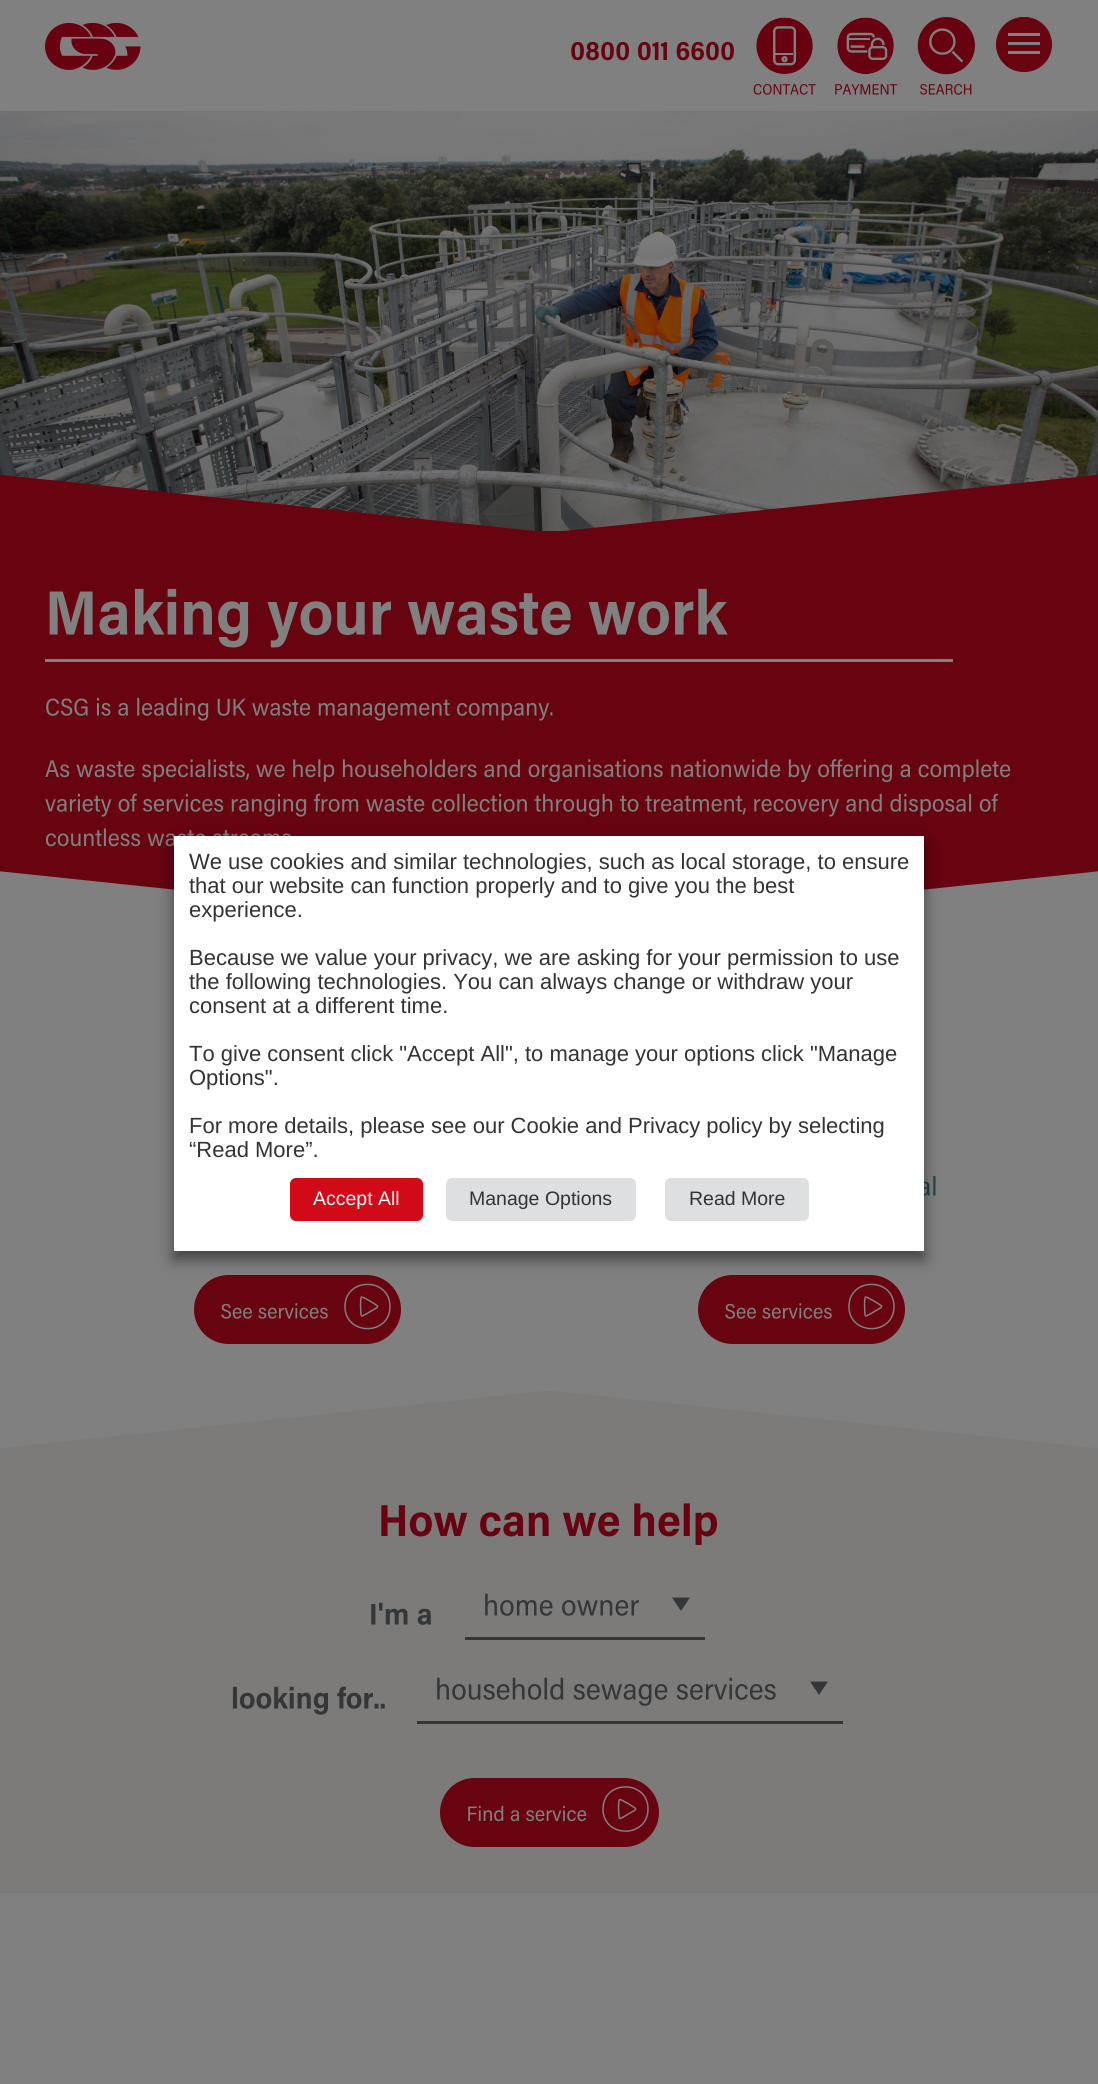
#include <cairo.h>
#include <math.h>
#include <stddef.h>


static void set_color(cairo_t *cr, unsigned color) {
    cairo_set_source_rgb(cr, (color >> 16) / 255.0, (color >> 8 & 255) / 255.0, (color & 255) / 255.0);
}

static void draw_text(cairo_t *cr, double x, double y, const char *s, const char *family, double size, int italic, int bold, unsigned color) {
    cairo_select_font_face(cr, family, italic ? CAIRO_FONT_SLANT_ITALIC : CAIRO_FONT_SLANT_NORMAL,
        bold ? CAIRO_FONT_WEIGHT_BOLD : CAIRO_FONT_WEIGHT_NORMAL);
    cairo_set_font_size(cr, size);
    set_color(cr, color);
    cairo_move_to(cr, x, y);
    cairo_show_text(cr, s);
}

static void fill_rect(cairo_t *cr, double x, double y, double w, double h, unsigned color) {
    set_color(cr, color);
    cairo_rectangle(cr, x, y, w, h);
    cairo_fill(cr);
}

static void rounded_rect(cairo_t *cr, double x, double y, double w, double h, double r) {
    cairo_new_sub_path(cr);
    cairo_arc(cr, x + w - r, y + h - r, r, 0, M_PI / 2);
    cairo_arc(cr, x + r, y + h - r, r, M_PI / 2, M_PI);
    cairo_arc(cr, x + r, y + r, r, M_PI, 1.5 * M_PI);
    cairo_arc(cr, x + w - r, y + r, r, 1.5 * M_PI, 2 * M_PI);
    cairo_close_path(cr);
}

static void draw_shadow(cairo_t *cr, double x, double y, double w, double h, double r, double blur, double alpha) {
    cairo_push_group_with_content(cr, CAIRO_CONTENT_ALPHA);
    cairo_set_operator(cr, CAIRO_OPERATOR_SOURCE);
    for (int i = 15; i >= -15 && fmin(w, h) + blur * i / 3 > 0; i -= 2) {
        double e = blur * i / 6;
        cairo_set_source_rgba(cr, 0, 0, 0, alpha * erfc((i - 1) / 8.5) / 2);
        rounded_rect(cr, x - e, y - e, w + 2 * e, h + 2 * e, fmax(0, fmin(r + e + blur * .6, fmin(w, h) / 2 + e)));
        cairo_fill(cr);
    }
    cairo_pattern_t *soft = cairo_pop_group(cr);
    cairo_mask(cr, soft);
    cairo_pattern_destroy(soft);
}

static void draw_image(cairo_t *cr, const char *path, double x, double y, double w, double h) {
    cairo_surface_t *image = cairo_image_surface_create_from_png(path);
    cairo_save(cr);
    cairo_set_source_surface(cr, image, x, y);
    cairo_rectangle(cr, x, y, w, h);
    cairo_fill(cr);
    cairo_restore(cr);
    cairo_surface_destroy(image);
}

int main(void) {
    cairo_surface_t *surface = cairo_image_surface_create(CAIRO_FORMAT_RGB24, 1098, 2084);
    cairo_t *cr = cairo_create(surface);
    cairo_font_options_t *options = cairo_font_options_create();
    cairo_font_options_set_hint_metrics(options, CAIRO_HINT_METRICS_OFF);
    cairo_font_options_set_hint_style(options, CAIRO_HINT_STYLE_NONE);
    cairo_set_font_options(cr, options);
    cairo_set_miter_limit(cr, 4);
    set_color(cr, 0x808080);
    cairo_paint(cr);
    draw_image(cr, "assets/img1.png", 45, 23, 96, 47);
    draw_image(cr, "assets/img2.png", 571, 41, 163, 20);
    draw_image(cr, "assets/img3.png", 756, 17, 57, 57);
    draw_image(cr, "assets/img4.png", 753, 84, 63, 11);
    draw_image(cr, "assets/img5.png", 837, 17, 57, 57);
    draw_image(cr, "assets/img6.png", 835, 84, 63, 11);
    draw_image(cr, "assets/img7.png", 917, 17, 58, 58);
    draw_image(cr, "assets/img8.png", 920, 84, 52, 11);
    set_color(cr, 0x680310);
    rounded_rect(cr, 996.5, 17.5, 55, 54, 27);
    cairo_fill_preserve(cr);
    cairo_set_line_width(cr, 1);
    cairo_stroke(cr);
    fill_rect(cr, 1008, 33, 32, 3, 0x808080);
    fill_rect(cr, 1008, 42, 32, 3, 0x808080);
    fill_rect(cr, 1008, 51, 32, 3, 0x808080);
    draw_image(cr, "assets/img9.png", 0, 111, 1098, 420);
    cairo_save(cr);
    cairo_rectangle(cr, 0, 111, 1098, 420);
    cairo_clip(cr);
    set_color(cr, 0x680310);
    cairo_new_path(cr);
    cairo_move_to(cr, -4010, 111);
    cairo_line_to(cr, -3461, 111);
    cairo_line_to(cr, 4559, 954);
    cairo_line_to(cr, 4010, 954);
    cairo_close_path(cr);
    cairo_fill(cr);
    cairo_new_path(cr);
    cairo_move_to(cr, 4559, 111);
    cairo_line_to(cr, 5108, 111);
    cairo_line_to(cr, -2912, 954);
    cairo_line_to(cr, -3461, 954);
    cairo_close_path(cr);
    cairo_fill(cr);
    cairo_restore(cr);
    fill_rect(cr, 0, 531, 1098, 359, 0x680310);
    draw_image(cr, "assets/img10.png", 49, 588, 679, 60);
    fill_rect(cr, 45, 659, 908, 3, 0x808080);
    draw_image(cr, "assets/img11.png", 46, 697, 507, 24);
    draw_image(cr, "assets/img12.png", 45, 759, 966, 24);
    draw_image(cr, "assets/img13.png", 45, 793, 953, 24);
    draw_image(cr, "assets/img14.png", 45, 828, 246, 19);
    cairo_save(cr);
    cairo_rectangle(cr, 0, 531, 1098, 398);
    cairo_clip(cr);
    cairo_new_path(cr);
    cairo_move_to(cr, -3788, 531);
    cairo_line_to(cr, -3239, 531);
    cairo_line_to(cr, 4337, 1327);
    cairo_line_to(cr, 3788, 1327);
    cairo_close_path(cr);
    cairo_fill(cr);
    cairo_new_path(cr);
    cairo_move_to(cr, 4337, 531);
    cairo_line_to(cr, 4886, 531);
    cairo_line_to(cr, -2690, 1327);
    cairo_line_to(cr, -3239, 1327);
    cairo_close_path(cr);
    cairo_fill(cr);
    cairo_restore(cr);
    set_color(cr, 0x680310);
    rounded_rect(cr, 194, 1275, 207, 69, 34.5);
    cairo_fill(cr);
    draw_image(cr, "assets/img15.png", 221, 1303, 107, 16);
    cairo_new_path(cr);
    cairo_move_to(cr, 390, 1306.5);
    cairo_curve_to(cr, 390, 1336, 345, 1336, 345, 1306.5);
    cairo_curve_to(cr, 345, 1277, 390, 1277, 390, 1306.5);
    cairo_close_path(cr);
    cairo_move_to(cr, 377, 1305.5);
    cairo_curve_to(cr, 375, 1304, 363, 1296.5, 361.5, 1297);
    cairo_curve_to(cr, 360, 1297.5, 360.5, 1315.5, 361.5, 1316);
    cairo_curve_to(cr, 362.5, 1316.5, 370.5, 1311.5, 372, 1310.5);
    cairo_curve_to(cr, 372.5, 1310, 380, 1307, 377, 1305.5);
    cairo_close_path(cr);
    set_color(cr, 0x808080);
    cairo_set_line_width(cr, 1.5);
    cairo_stroke(cr);
    draw_image(cr, "assets/img16.png", 924, 1175, 12, 21);
    set_color(cr, 0x680310);
    rounded_rect(cr, 698, 1275, 207, 69, 34.5);
    cairo_fill(cr);
    draw_image(cr, "assets/img15.png", 725, 1303, 107, 16);
    cairo_new_path(cr);
    cairo_move_to(cr, 894, 1306.5);
    cairo_curve_to(cr, 894, 1336, 849, 1336, 849, 1306.5);
    cairo_curve_to(cr, 849, 1277, 894, 1277, 894, 1306.5);
    cairo_close_path(cr);
    cairo_move_to(cr, 881, 1305.5);
    cairo_curve_to(cr, 879, 1304, 867, 1296.5, 865.5, 1297);
    cairo_curve_to(cr, 864, 1297.5, 864.5, 1315.5, 865.5, 1316);
    cairo_curve_to(cr, 866.5, 1316.5, 874.5, 1311.5, 876, 1310.5);
    cairo_curve_to(cr, 876.5, 1310, 884, 1307, 881, 1305.5);
    cairo_close_path(cr);
    set_color(cr, 0x808080);
    cairo_stroke(cr);
    fill_rect(cr, 0, 1391, 1098, 502, 0x7C7B7A);
    cairo_save(cr);
    cairo_rectangle(cr, 0, 1391, 1098, 504);
    cairo_clip(cr);
    set_color(cr, 0x808080);
    cairo_new_path(cr);
    cairo_move_to(cr, 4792, 887);
    cairo_line_to(cr, 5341, 887);
    cairo_line_to(cr, -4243, 1894);
    cairo_line_to(cr, -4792, 1894);
    cairo_close_path(cr);
    cairo_fill(cr);
    cairo_new_path(cr);
    cairo_move_to(cr, -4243, 887);
    cairo_line_to(cr, -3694, 887);
    cairo_line_to(cr, 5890, 1894);
    cairo_line_to(cr, 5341, 1894);
    cairo_close_path(cr);
    cairo_fill(cr);
    cairo_restore(cr);
    draw_image(cr, "assets/img17.png", 381, 1503, 337, 42);
    draw_image(cr, "assets/img18.png", 371, 1602, 60, 23);
    fill_rect(cr, 465, 1637, 240, 3, 0x343638);
    draw_image(cr, "assets/img19.png", 485, 1593, 154, 23);
    cairo_new_path(cr);
    cairo_move_to(cr, 672, 1597.5);
    cairo_line_to(cr, 690, 1597.5);
    cairo_line_to(cr, 681, 1611);
    cairo_close_path(cr);
    cairo_fill(cr);
    draw_image(cr, "assets/img20.png", 232, 1686, 153, 29);
    fill_rect(cr, 417, 1721, 426, 3, 0x343638);
    draw_image(cr, "assets/img21.png", 437, 1677, 339, 29);
    cairo_new_path(cr);
    cairo_move_to(cr, 810, 1681.5);
    cairo_line_to(cr, 828, 1681.5);
    cairo_line_to(cr, 819, 1695);
    cairo_close_path(cr);
    cairo_fill(cr);
    set_color(cr, 0x680310);
    rounded_rect(cr, 440, 1778, 219, 69, 34.5);
    cairo_fill(cr);
    draw_image(cr, "assets/img22.png", 468, 1805, 119, 17);
    cairo_new_path(cr);
    cairo_move_to(cr, 648, 1809);
    cairo_curve_to(cr, 648, 1838.5, 603, 1838.5, 603, 1809);
    cairo_curve_to(cr, 603, 1779.5, 648, 1779.5, 648, 1809);
    cairo_close_path(cr);
    cairo_move_to(cr, 635, 1808);
    cairo_curve_to(cr, 633, 1806.5, 621, 1799, 619.5, 1799.5);
    cairo_curve_to(cr, 618, 1800, 618.5, 1818, 619.5, 1818.5);
    cairo_curve_to(cr, 620.5, 1819, 628.5, 1814, 630, 1813);
    cairo_curve_to(cr, 630.5, 1812.5, 638, 1809.5, 635, 1808);
    cairo_close_path(cr);
    set_color(cr, 0x808080);
    cairo_stroke(cr);
    set_color(cr, 0x000000);
    draw_shadow(cr, 174, 843, 750, 416, 0, 7.5, 0.5);
    fill_rect(cr, 174, 836, 750, 415, 0xFFFFFF);
    draw_text(cr, 189, 869, "We use cookies and similar technologies, such as local storage, to ensure", "Liberation Sans", 22, 0, 0, 0x333333);
    draw_text(cr, 189, 893, "that our website can function properly and to give you the best", "Liberation Sans", 22, 0, 0, 0x333333);
    draw_text(cr, 189, 917, "experience.", "Liberation Sans", 22, 0, 0, 0x333333);
    draw_text(cr, 189, 965, "Because we value your privacy, we are asking for your permission to use", "Liberation Sans", 22, 0, 0, 0x333333);
    draw_text(cr, 189, 989, "the following technologies. You can always change or withdraw your", "Liberation Sans", 22, 0, 0, 0x333333);
    draw_text(cr, 189, 1013, "consent at a different time.", "Liberation Sans", 22, 0, 0, 0x333333);
    draw_text(cr, 189, 1061, "To give consent click \"Accept All\", to manage your options click \"Manage", "Liberation Sans", 22, 0, 0, 0x333333);
    draw_text(cr, 189, 1085, "Options\".", "Liberation Sans", 22, 0, 0, 0x333333);
    draw_text(cr, 189, 1133, "For more details, please see our Cookie and Privacy policy by selecting", "Liberation Sans", 22, 0, 0, 0x333333);
    draw_text(cr, 189, 1157, "“Read More”.", "Liberation Sans", 22, 0, 0, 0x333333);
    set_color(cr, 0xD20A18);
    rounded_rect(cr, 290, 1178, 133, 43, 6);
    cairo_fill(cr);
    draw_text(cr, 313, 1205, "Accept All", "Liberation Sans", 19.5, 0, 0, 0xFFFFFF);
    set_color(cr, 0xDEDFE0);
    rounded_rect(cr, 446, 1178, 190, 43, 6);
    cairo_fill(cr);
    draw_text(cr, 469, 1205, "Manage Options", "Liberation Sans", 19.5, 0, 0, 0x333333);
    set_color(cr, 0xDEDFE0);
    rounded_rect(cr, 665, 1178, 144, 43, 6);
    cairo_fill(cr);
    draw_text(cr, 689, 1205, "Read More", "Liberation Sans", 19.5, 0, 0, 0x333333);
    cairo_surface_write_to_png(surface, "output.png");
    cairo_font_options_destroy(options);
    cairo_destroy(cr);
    cairo_surface_destroy(surface);
    return 0;
}
